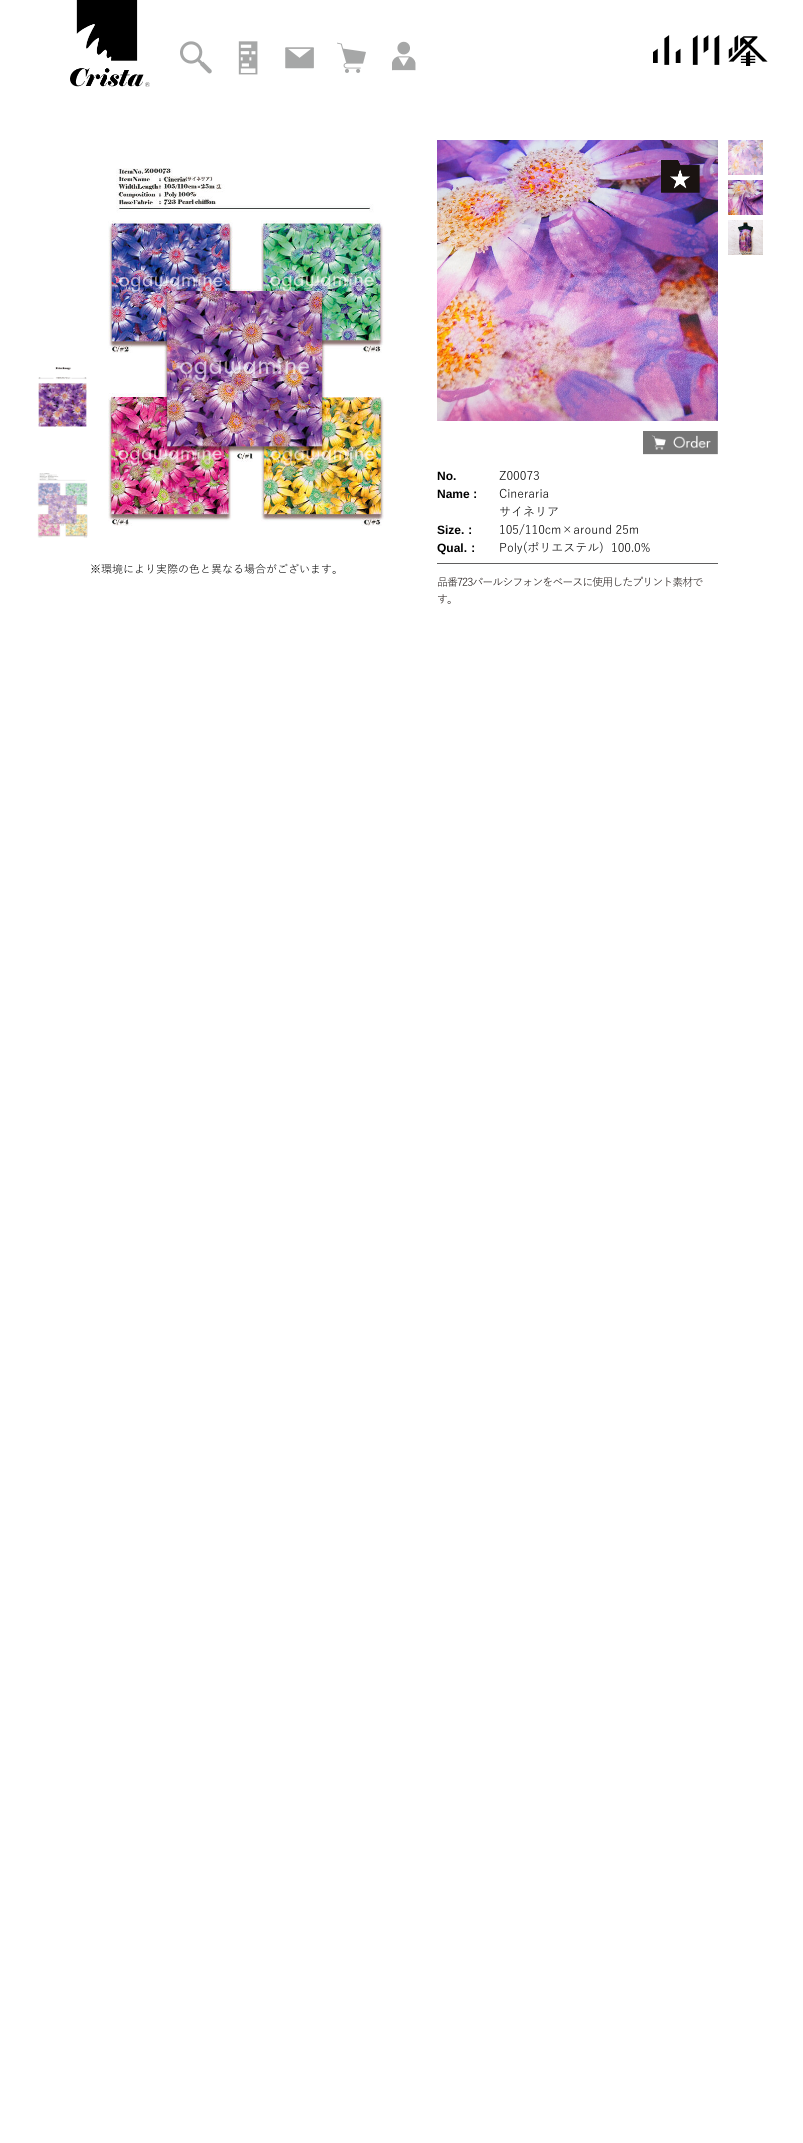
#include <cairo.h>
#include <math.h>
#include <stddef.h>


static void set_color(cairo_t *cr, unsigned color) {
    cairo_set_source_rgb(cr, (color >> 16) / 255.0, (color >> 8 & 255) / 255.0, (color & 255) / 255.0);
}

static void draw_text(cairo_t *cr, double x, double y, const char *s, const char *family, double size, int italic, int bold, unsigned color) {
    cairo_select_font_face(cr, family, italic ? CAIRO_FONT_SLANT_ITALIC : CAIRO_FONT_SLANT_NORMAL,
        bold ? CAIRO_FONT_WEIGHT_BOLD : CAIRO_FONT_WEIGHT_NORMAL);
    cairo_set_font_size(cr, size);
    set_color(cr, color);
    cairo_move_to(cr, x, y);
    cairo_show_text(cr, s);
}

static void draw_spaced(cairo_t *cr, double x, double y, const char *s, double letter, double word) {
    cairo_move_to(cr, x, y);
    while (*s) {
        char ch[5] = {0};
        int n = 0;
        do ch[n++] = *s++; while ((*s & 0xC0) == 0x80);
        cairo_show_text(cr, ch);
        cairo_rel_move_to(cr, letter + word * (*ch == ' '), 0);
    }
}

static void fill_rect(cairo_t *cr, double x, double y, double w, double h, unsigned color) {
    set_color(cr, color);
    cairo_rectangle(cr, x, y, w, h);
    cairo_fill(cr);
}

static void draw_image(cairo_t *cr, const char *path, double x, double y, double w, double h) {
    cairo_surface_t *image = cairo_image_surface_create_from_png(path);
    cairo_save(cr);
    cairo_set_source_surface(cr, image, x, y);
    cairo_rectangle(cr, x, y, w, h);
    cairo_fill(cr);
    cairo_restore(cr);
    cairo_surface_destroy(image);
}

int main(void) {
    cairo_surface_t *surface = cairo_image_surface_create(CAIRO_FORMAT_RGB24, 803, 2143);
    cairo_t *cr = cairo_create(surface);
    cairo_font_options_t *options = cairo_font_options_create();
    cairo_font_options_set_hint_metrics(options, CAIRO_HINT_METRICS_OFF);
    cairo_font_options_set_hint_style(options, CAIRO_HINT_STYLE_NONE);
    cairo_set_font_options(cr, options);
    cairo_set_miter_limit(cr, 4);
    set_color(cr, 0xFFFFFF);
    cairo_paint(cr);
    draw_image(cr, "assets/img1.png", 70, 0, 80, 87);
    draw_image(cr, "assets/img2.png", 180, 41, 32, 33);
    draw_image(cr, "assets/img3.png", 238, 41, 20, 34);
    draw_image(cr, "assets/img4.png", 285, 47, 29, 22);
    draw_image(cr, "assets/img5.png", 337, 42, 29, 31);
    draw_image(cr, "assets/img6.png", 392, 41, 24, 30);
    draw_image(cr, "assets/img7.png", 653, 35, 115, 31);
    draw_image(cr, "assets/img8.png", 38, 367, 49, 60);
    draw_image(cr, "assets/img9.png", 37, 473, 51, 65);
    draw_image(cr, "assets/img10.png", 108, 168, 276, 358);
    draw_text(cr, 90, 573, "※環境により実際の色と異なる場合がございます。", "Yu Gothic", 11, 0, 0, 0x000000);
    draw_image(cr, "assets/img11.png", 728, 140, 35, 35);
    draw_image(cr, "assets/img12.png", 728, 180, 35, 35);
    draw_image(cr, "assets/img13.png", 728, 220, 35, 35);
    draw_image(cr, "assets/img14.png", 437, 140, 281, 281);
    draw_image(cr, "assets/img15.png", 661, 160, 39, 33);
    draw_image(cr, "assets/img16.png", 643, 431, 75, 24);
    fill_rect(cr, 437, 563, 281, 1, 0x5F5E5E);
    draw_text(cr, 437, 480, "No.", "Liberation Sans", 12, 0, 1, 0x000000);
    draw_text(cr, 499, 480, "Z00073", "Yu Gothic", 12, 0, 0, 0x000000);
    draw_text(cr, 437, 498, "Name", "Liberation Sans", 12, 0, 1, 0x000000);
    draw_text(cr, 469, 498, "：", "WenQuanYi Zen Hei", 12, 0, 1, 0x000000);
    draw_text(cr, 499, 498, "Cineraria", "Yu Gothic", 12, 0, 0, 0x000000);
    draw_text(cr, 499, 516, "サイネリア", "Yu Gothic", 12, 0, 0, 0x000000);
    draw_text(cr, 437, 534, "Size.", "Liberation Sans", 12, 0, 1, 0x000000);
    draw_text(cr, 464, 534, "：", "WenQuanYi Zen Hei", 12, 0, 1, 0x000000);
    draw_text(cr, 499, 534, "105/110cm×around 25m", "Yu Gothic", 12, 0, 0, 0x000000);
    draw_text(cr, 437, 552, "Qual.", "Liberation Sans", 12, 0, 1, 0x000000);
    draw_text(cr, 467, 552, "：", "WenQuanYi Zen Hei", 12, 0, 1, 0x000000);
    draw_text(cr, 499, 552, "Poly(ポリエステル)", "Yu Gothic", 12, 0, 0, 0x000000);
    draw_text(cr, 611, 552, "100.0%", "Yu Gothic", 12, 0, 0, 0x000000);
    cairo_set_font_size(cr, 11);
    set_color(cr, 0x1A1311);
    draw_spaced(cr, 437, 586, "品番723パールシフォンをベースに使用したプリント素材で", -1, 0);
    draw_spaced(cr, 437, 603, "す。", -1, 0);
    cairo_surface_write_to_png(surface, "output.png");
    cairo_font_options_destroy(options);
    cairo_destroy(cr);
    cairo_surface_destroy(surface);
    return 0;
}
